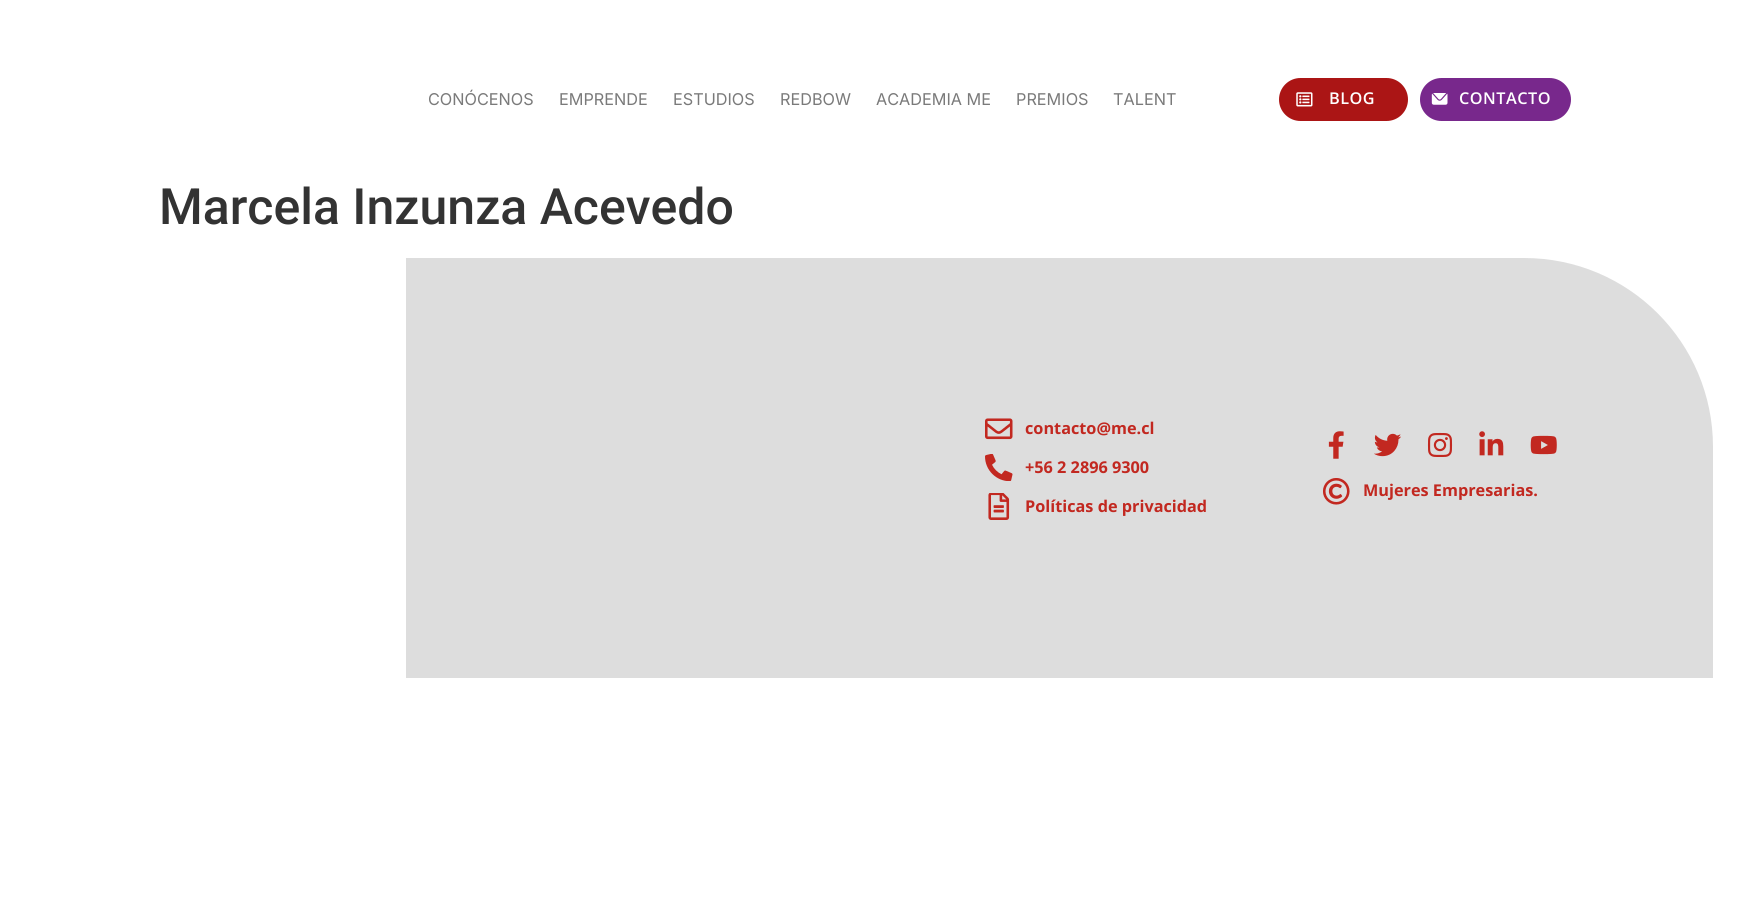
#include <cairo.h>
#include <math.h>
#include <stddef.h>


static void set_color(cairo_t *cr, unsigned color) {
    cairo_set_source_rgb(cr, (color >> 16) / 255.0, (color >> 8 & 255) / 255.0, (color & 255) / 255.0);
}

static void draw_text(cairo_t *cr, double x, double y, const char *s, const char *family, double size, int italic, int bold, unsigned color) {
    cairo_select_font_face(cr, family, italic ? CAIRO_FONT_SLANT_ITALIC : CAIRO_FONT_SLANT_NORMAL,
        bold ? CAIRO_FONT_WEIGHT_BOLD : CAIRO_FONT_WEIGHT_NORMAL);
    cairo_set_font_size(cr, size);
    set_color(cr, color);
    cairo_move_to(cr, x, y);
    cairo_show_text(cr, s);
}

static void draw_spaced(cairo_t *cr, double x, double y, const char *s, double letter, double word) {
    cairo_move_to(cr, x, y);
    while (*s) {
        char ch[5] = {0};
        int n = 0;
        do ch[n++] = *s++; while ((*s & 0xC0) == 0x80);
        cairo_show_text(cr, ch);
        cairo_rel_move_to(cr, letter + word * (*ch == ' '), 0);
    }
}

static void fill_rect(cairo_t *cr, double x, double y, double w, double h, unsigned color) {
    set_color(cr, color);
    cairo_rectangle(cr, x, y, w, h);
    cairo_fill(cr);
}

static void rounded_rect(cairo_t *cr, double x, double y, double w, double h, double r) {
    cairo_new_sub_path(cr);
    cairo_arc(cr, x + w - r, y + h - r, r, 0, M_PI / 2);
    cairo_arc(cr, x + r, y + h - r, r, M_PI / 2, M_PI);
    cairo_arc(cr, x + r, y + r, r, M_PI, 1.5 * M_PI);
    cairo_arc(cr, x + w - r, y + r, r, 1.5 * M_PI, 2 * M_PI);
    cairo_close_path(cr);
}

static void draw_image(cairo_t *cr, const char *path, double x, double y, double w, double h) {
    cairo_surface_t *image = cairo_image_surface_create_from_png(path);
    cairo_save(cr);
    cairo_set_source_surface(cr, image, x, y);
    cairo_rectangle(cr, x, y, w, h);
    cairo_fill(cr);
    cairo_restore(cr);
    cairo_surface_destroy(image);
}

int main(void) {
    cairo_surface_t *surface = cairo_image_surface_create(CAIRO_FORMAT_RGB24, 1743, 923);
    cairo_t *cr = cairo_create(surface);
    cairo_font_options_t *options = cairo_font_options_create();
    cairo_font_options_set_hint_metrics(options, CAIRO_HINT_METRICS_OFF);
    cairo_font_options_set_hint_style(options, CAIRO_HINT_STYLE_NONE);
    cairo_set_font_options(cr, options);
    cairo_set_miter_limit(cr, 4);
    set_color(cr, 0xFFFFFF);
    cairo_paint(cr);
    draw_text(cr, 428, 105, "CONÓCENOS", "Inter", 16.25, 0, 0, 0x7A7A7A);
    draw_text(cr, 559, 105, "EMPRENDE", "Inter", 16.25, 0, 0, 0x7A7A7A);
    draw_text(cr, 673, 105, "ESTUDIOS", "Inter", 16.25, 0, 0, 0x7A7A7A);
    draw_text(cr, 780, 105, "REDBOW", "Inter", 16.25, 0, 0, 0x7A7A7A);
    draw_text(cr, 876, 105, "ACADEMIA ME", "Inter", 16.25, 0, 0, 0x7A7A7A);
    draw_text(cr, 1016, 105, "PREMIOS", "Inter", 16.25, 0, 0, 0x7A7A7A);
    draw_text(cr, 1113, 105, "TALENT", "Inter", 16.25, 0, 0, 0x7A7A7A);
    set_color(cr, 0xAB1515);
    rounded_rect(cr, 1279, 78, 129, 43, 21.5);
    cairo_fill(cr);
    draw_image(cr, "assets/img1.png", 1296, 92, 17, 15);
    cairo_select_font_face(cr, "Open Sans SemiBold", CAIRO_FONT_SLANT_NORMAL, CAIRO_FONT_WEIGHT_NORMAL);
    set_color(cr, 0xFFFFFF);
    draw_spaced(cr, 1329, 104, "BLOG", 0.5, 0);
    set_color(cr, 0x78288C);
    rounded_rect(cr, 1420, 78, 151, 43, 21.5);
    cairo_fill(cr);
    draw_image(cr, "assets/img2.png", 1431, 93, 17, 12);
    set_color(cr, 0xFFFFFF);
    draw_spaced(cr, 1459, 104, "CONTACTO", 0.5, 0);
    draw_text(cr, 159, 224, "Marcela Inzunza Acevedo", "Roboto Medium", 50, 0, 0, 0x333333);
    fill_rect(cr, 406, 258, 875, 420, 0xDDDDDD);
    draw_image(cr, "assets/img3.png", 985, 418, 28, 22);
    draw_text(cr, 1025, 434, "contacto@me.cl", "Open Sans", 16.25, 0, 1, 0xC22820);
    draw_image(cr, "assets/img4.png", 985, 454, 28, 27);
    draw_text(cr, 1025, 473, "+56 2 2896 9300", "Open Sans", 16.25, 0, 1, 0xC22820);
    draw_image(cr, "assets/img5.png", 988, 493, 22, 27);
    draw_text(cr, 1025, 512, "Políticas de privacidad", "Open Sans", 16.25, 0, 1, 0xC22820);
    set_color(cr, 0xDDDDDD);
    cairo_new_path(cr);
    cairo_move_to(cr, 1281, 258);
    cairo_line_to(cr, 1524, 258);
    cairo_curve_to(cr, 1628.5, 258, 1713, 342.5, 1713, 447);
    cairo_line_to(cr, 1713, 678);
    cairo_line_to(cr, 1281, 678);
    cairo_close_path(cr);
    cairo_fill(cr);
    draw_image(cr, "assets/img6.png", 1328, 431, 16, 28);
    draw_image(cr, "assets/img7.png", 1374, 433, 27, 24);
    draw_image(cr, "assets/img8.png", 1427, 432, 26, 25);
    draw_image(cr, "assets/img9.png", 1479, 431, 25, 25);
    draw_image(cr, "assets/img10.png", 1530, 435, 27, 20);
    draw_image(cr, "assets/img11.png", 1323, 478, 27, 27);
    draw_text(cr, 1363, 496, "Mujeres Empresarias.", "Open Sans", 16.25, 0, 1, 0xC22820);
    cairo_surface_write_to_png(surface, "output.png");
    cairo_font_options_destroy(options);
    cairo_destroy(cr);
    cairo_surface_destroy(surface);
    return 0;
}
